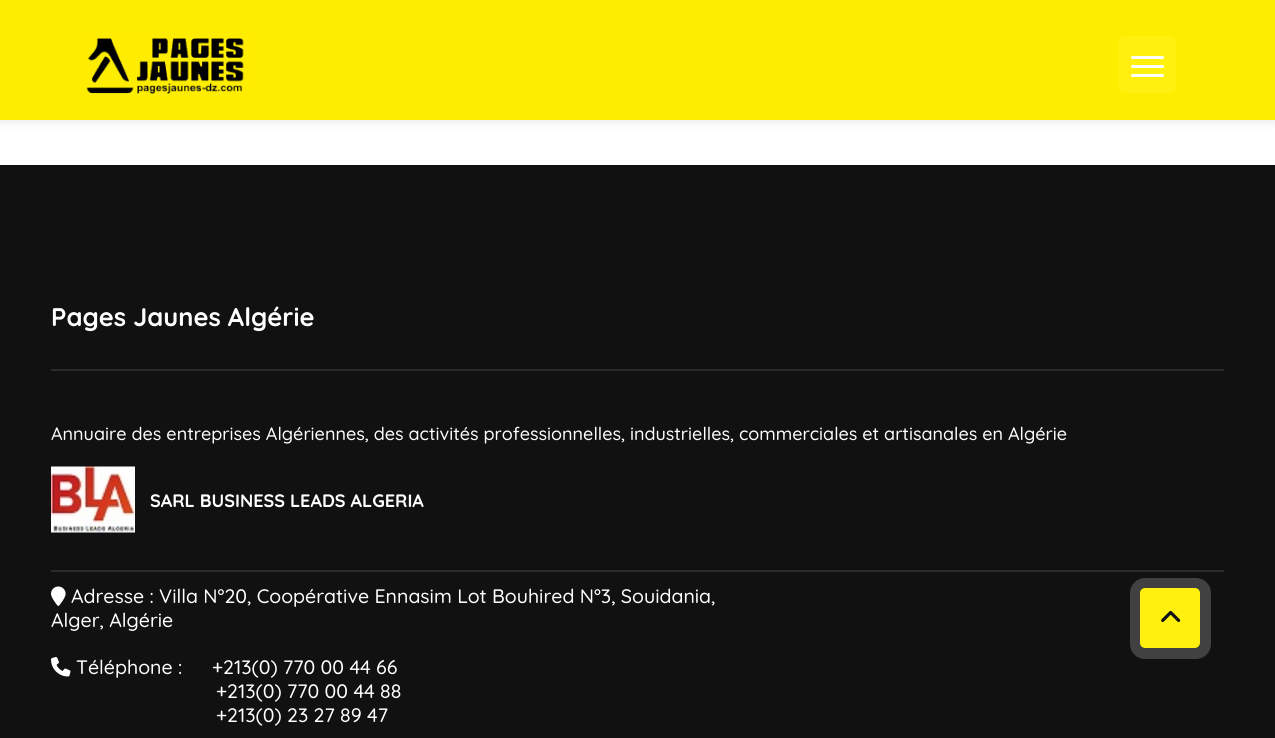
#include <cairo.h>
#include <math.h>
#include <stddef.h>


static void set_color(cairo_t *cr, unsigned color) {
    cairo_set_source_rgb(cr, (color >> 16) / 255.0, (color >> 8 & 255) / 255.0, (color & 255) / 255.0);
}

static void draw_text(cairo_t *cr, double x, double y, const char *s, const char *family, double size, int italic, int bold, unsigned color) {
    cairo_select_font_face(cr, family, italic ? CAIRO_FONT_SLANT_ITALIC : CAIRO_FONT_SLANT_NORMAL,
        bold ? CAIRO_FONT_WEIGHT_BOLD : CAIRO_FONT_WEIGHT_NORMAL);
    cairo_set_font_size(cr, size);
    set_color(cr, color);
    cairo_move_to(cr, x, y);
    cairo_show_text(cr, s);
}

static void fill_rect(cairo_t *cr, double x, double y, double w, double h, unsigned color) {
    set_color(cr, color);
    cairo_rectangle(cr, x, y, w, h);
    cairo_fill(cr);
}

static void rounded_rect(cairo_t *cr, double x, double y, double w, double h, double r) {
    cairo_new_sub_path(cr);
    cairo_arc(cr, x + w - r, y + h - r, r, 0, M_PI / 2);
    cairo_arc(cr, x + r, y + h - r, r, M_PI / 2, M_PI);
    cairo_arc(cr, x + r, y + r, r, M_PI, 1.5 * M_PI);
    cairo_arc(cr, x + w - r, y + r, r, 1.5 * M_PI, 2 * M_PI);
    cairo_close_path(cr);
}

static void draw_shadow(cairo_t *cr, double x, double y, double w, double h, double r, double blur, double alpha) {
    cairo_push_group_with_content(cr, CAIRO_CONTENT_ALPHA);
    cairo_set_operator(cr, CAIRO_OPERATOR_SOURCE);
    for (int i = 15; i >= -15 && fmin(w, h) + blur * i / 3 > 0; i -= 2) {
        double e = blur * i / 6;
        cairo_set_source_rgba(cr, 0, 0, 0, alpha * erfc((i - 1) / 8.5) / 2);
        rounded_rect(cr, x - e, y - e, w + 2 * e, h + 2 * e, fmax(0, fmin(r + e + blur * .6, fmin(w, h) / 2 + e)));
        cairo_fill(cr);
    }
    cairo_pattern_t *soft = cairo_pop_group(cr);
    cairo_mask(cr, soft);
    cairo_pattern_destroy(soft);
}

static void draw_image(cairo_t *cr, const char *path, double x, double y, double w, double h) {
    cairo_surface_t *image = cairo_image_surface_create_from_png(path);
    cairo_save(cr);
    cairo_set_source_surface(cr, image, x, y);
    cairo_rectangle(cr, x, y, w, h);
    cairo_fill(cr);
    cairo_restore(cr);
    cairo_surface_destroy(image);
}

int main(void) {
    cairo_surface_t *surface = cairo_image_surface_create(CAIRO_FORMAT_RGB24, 1275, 738);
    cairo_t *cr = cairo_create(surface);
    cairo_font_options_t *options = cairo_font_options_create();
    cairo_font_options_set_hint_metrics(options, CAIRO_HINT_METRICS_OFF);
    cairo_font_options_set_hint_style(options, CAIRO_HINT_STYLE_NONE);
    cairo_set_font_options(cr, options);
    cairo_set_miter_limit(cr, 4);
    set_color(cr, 0x111111);
    cairo_paint(cr);
    fill_rect(cr, 0, 120, 1275, 45, 0xFFFFFF);
    set_color(cr, 0x000000);
    draw_shadow(cr, 0, 0, 1275, 120, 0, 6, 0.12);
    fill_rect(cr, 0, 0, 1275, 120, 0xFDEE00);
    draw_image(cr, "assets/img1.png", 75, 30, 180, 72);
    set_color(cr, 0xFFF00F);
    rounded_rect(cr, 1119, 36, 57, 57, 6);
    cairo_fill(cr);
    set_color(cr, 0xFFFFFF);
    rounded_rect(cr, 1131, 56, 33, 3, 1.5);
    cairo_fill(cr);
    rounded_rect(cr, 1131, 65, 33, 3, 1.5);
    cairo_fill(cr);
    rounded_rect(cr, 1131, 74, 33, 3, 1.5);
    cairo_fill(cr);
    fill_rect(cr, 51, 369, 1173, 2, 0x2B2B2B);
    draw_text(cr, 51, 326, "Pages Jaunes Algérie", "Quicksand", 25.5, 0, 1, 0xFFFFFF);
    draw_text(cr, 51, 440, "Annuaire des entreprises Algériennes, des activités professionnelles, industrielles, commerciales et artisanales en Algérie", "Quicksand Medium", 18, 0, 0, 0xFFFFFF);
    fill_rect(cr, 51, 570, 1173, 2, 0x2B2B2B);
    draw_image(cr, "assets/img2.png", 51, 466, 84, 67);
    draw_text(cr, 150, 507, "SARL BUSINESS LEADS ALGERIA", "Quicksand", 18, 0, 1, 0xFFFFFF);
    draw_image(cr, "assets/img3.png", 51, 586, 15, 20);
    draw_text(cr, 71, 603, "Adresse : Villa N°20, Coopérative Ennasim Lot Bouhired N°3, Souidania,", "Quicksand Medium", 19.5, 0, 0, 0xFFFFFF);
    draw_text(cr, 51, 627, "Alger, Algérie", "Quicksand Medium", 19.5, 0, 0, 0xFFFFFF);
    draw_image(cr, "assets/img4.png", 51, 657, 20, 20);
    draw_text(cr, 76, 674, "Téléphone :", "Quicksand Medium", 19.5, 0, 0, 0xFFFFFF);
    draw_text(cr, 212, 674, "+213(0) 770 00 44 66", "Quicksand Medium", 19.5, 0, 0, 0xFFFFFF);
    draw_text(cr, 216, 698, "+213(0) 770 00 44 88", "Quicksand Medium", 19.5, 0, 0, 0xFFFFFF);
    draw_text(cr, 216, 722, "+213(0) 23 27 89 47", "Quicksand Medium", 19.5, 0, 0, 0xFFFFFF);
    rounded_rect(cr, 1135.5, 583.5, 70, 70, 9.5);
    set_color(cr, 0x414141);
    cairo_set_line_width(cr, 11);
    cairo_stroke(cr);
    set_color(cr, 0xFFF00F);
    rounded_rect(cr, 1140, 588, 60, 60, 5);
    cairo_fill(cr);
    draw_image(cr, "assets/img5.png", 1161, 610, 20, 12);
    cairo_surface_write_to_png(surface, "output.png");
    cairo_font_options_destroy(options);
    cairo_destroy(cr);
    cairo_surface_destroy(surface);
    return 0;
}
